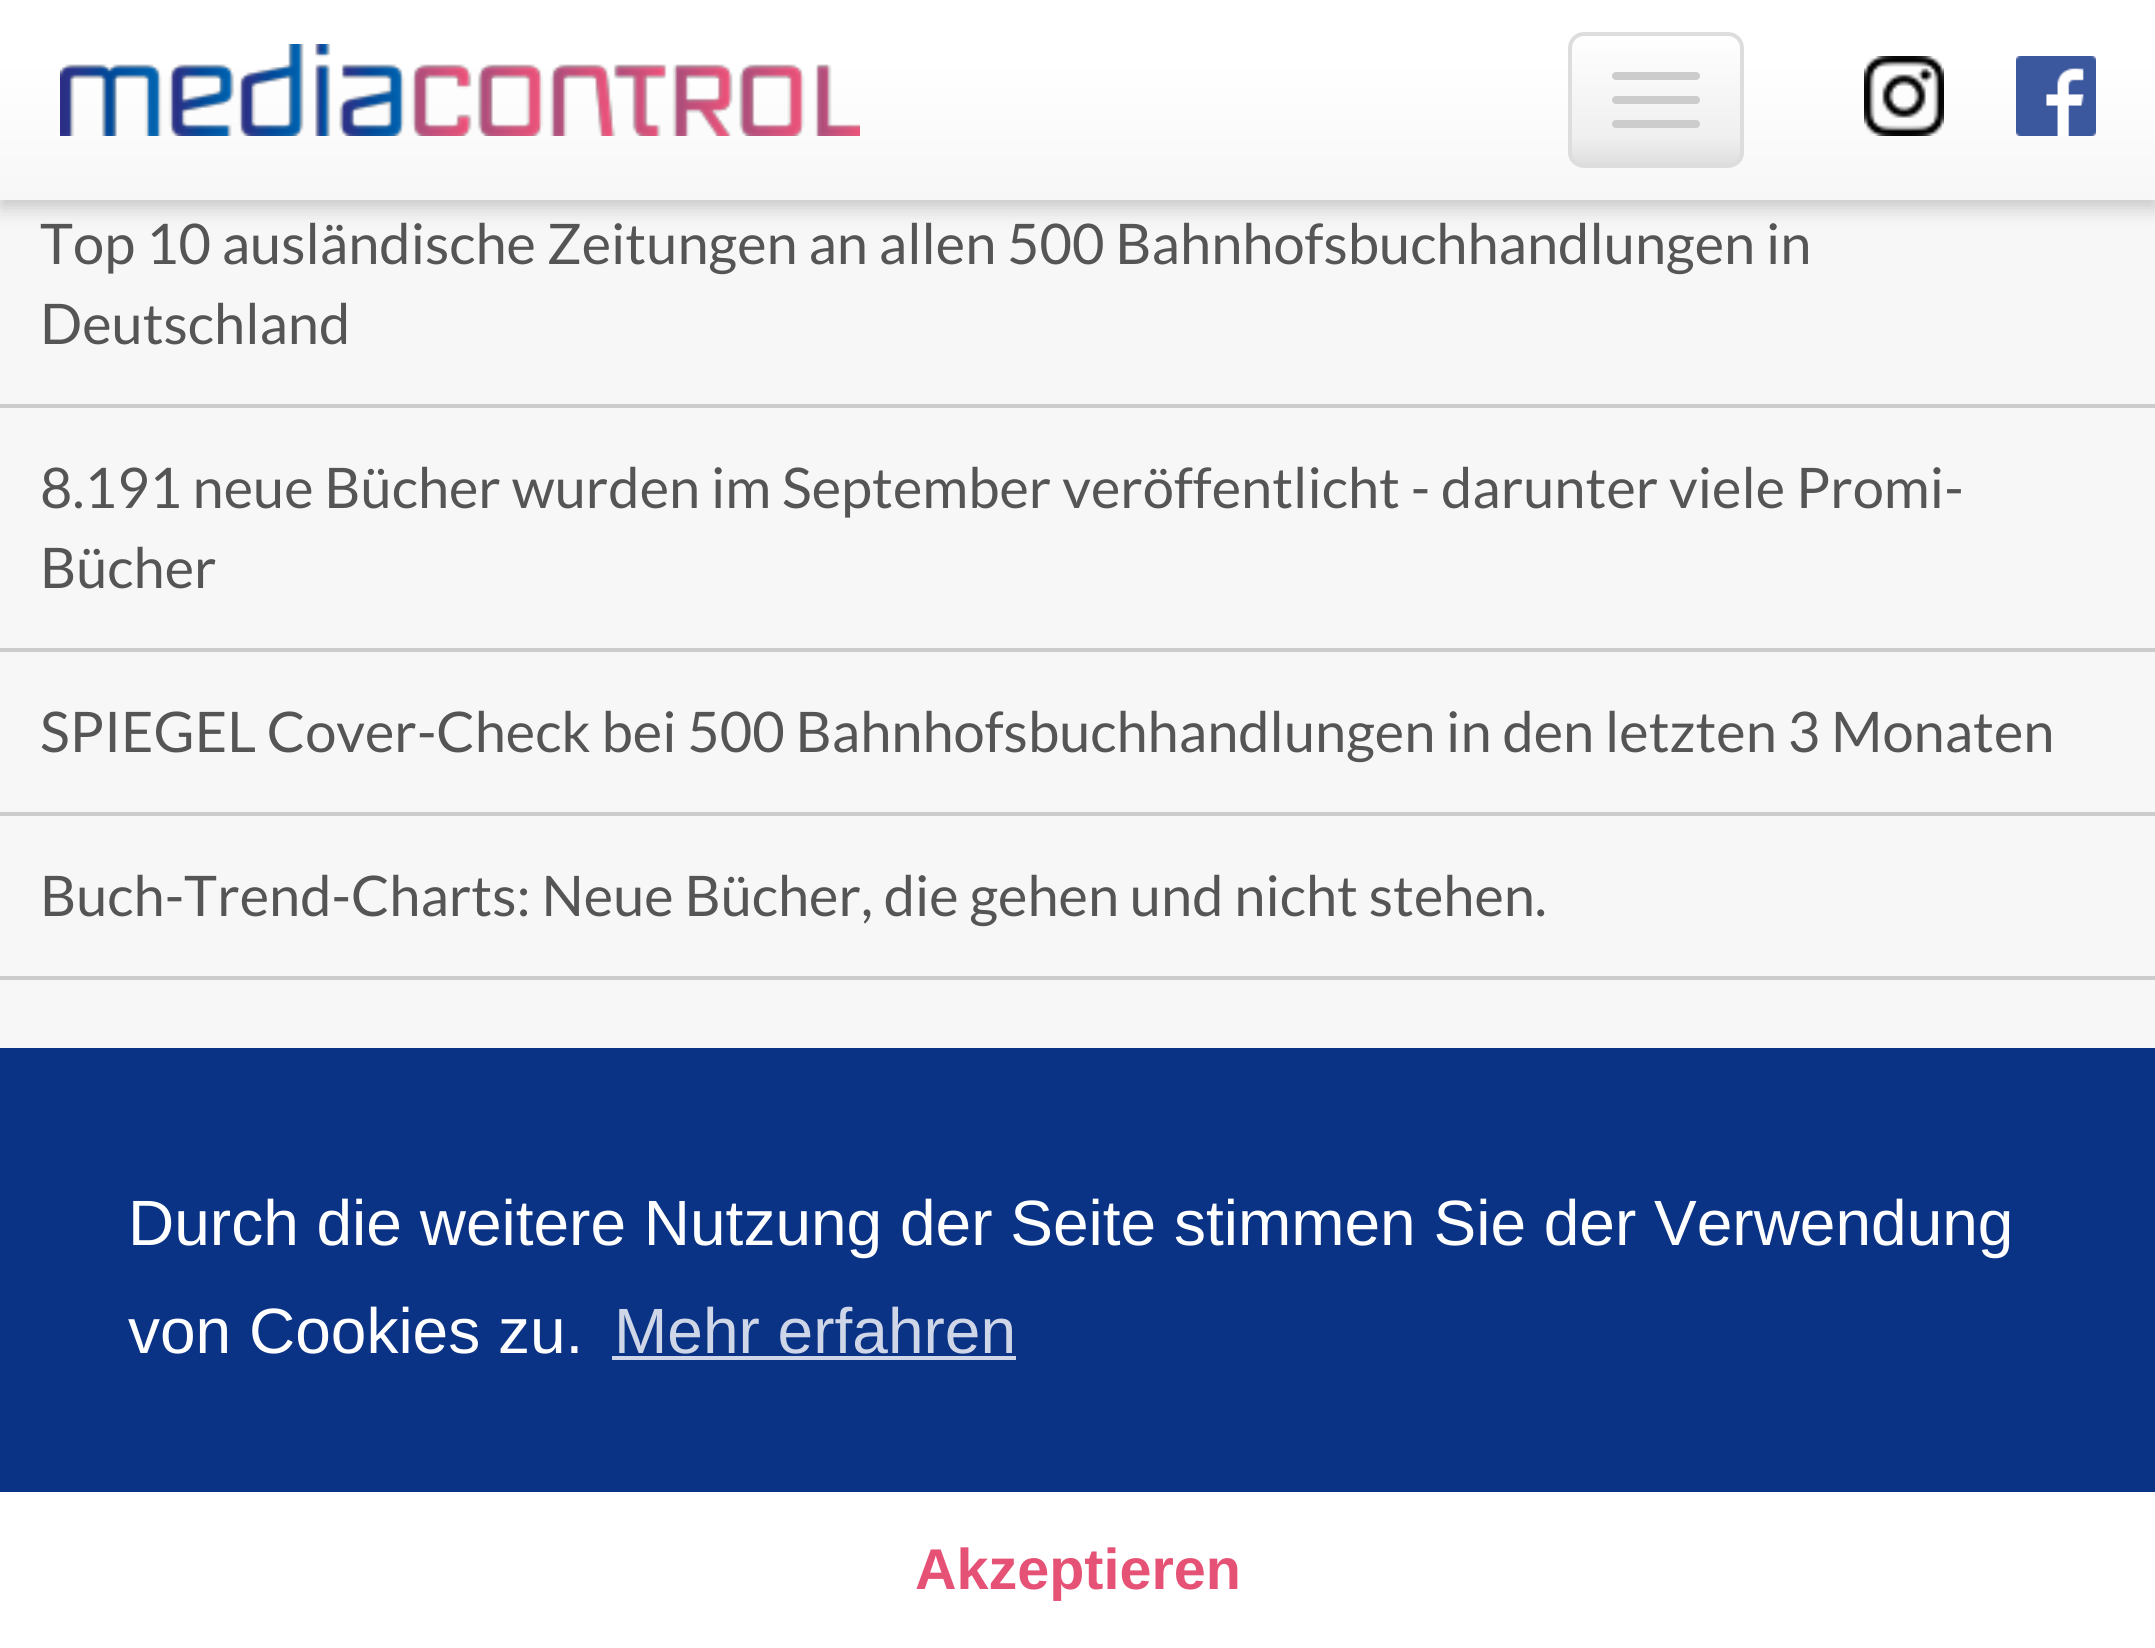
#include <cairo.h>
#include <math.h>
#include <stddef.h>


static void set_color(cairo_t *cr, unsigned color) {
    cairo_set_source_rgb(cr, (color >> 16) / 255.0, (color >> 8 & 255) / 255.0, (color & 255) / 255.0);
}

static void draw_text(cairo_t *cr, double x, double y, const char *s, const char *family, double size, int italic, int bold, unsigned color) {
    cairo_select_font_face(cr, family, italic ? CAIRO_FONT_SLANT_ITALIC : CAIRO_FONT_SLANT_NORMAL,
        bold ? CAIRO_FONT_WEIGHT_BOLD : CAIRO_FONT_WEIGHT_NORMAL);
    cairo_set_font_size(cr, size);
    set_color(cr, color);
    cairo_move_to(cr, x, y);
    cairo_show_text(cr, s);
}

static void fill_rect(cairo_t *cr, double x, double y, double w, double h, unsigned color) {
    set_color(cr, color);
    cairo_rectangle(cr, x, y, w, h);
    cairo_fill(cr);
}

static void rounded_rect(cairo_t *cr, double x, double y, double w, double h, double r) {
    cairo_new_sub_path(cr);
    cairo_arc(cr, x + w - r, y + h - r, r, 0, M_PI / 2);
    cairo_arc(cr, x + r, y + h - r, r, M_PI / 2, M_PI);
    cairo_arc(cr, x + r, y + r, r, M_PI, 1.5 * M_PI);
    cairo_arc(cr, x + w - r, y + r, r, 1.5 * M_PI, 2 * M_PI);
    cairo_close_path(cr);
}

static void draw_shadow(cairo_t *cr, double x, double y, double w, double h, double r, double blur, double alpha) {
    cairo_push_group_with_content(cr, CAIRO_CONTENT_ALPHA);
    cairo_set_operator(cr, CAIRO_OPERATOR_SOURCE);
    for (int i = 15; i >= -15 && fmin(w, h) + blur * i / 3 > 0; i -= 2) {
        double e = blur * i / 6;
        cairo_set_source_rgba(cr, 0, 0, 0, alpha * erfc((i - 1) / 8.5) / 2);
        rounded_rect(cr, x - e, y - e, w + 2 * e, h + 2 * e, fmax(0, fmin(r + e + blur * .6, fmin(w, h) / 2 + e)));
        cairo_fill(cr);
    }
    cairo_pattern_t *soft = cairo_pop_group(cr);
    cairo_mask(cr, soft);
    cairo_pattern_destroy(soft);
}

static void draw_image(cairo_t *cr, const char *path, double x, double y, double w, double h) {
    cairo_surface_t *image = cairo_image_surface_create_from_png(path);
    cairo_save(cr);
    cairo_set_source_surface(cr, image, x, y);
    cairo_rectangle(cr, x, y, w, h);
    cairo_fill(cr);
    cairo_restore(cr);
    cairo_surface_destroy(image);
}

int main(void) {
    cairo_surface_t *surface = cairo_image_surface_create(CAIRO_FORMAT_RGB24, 2155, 1648);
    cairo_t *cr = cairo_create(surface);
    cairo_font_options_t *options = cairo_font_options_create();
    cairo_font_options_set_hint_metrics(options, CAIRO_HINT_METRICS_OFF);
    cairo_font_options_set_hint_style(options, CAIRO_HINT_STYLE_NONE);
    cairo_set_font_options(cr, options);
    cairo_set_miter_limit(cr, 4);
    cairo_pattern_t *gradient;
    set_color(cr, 0xF7F7F7);
    cairo_paint(cr);
    set_color(cr, 0x000000);
    draw_shadow(cr, 0, 8, 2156, 200, 0, 10, 0.2);
    gradient = cairo_pattern_create_linear(1078, 200, 1078, 0);
    cairo_pattern_add_color_stop_rgba(gradient, 0, 0.969, 0.969, 0.969, 1);
    cairo_pattern_add_color_stop_rgba(gradient, 0.7, 1, 1, 1, 1);
    cairo_pattern_add_color_stop_rgba(gradient, 1, 1, 1, 1, 1);
    cairo_set_source(cr, gradient);
    cairo_pattern_destroy(gradient);
    cairo_rectangle(cr, 0, 0, 2155, 200);
    cairo_fill(cr);
    draw_image(cr, "assets/img1.png", 60, 44, 800, 92);
    cairo_save(cr);
    rounded_rect(cr, 1568, 32, 176, 136, 16);
    cairo_clip(cr);
    gradient = cairo_pattern_create_linear(1656, 164, 1656, 36);
    cairo_pattern_add_color_stop_rgba(gradient, 0, 0.875, 0.875, 0.875, 1);
    cairo_pattern_add_color_stop_rgba(gradient, 0.2, 0.937, 0.937, 0.937, 1);
    cairo_pattern_add_color_stop_rgba(gradient, 1, 1, 1, 1, 1);
    cairo_set_source(cr, gradient);
    cairo_pattern_destroy(gradient);
    cairo_rectangle(cr, 1568, 36, 176, 128);
    cairo_fill(cr);
    cairo_restore(cr);
    rounded_rect(cr, 1570, 34, 172, 132, 14);
    set_color(cr, 0xDDDDDD);
    cairo_set_line_width(cr, 4);
    cairo_stroke(cr);
    set_color(cr, 0xCCCCCC);
    rounded_rect(cr, 1612, 72, 88, 8, 4);
    cairo_fill(cr);
    rounded_rect(cr, 1612, 96, 88, 8, 4);
    cairo_fill(cr);
    rounded_rect(cr, 1612, 120, 88, 8, 4);
    cairo_fill(cr);
    draw_image(cr, "assets/img2.png", 1864, 56, 80, 80);
    draw_image(cr, "assets/img3.png", 2016, 56, 80, 80);
    fill_rect(cr, 0, 404, 2155, 4, 0xCCCCCC);
    draw_text(cr, 40, 264, "Top 10 ausländische Zeitungen an allen 500 Bahnhofsbuchhandlungen in", "Lato", 56, 0, 0, 0x555555);
    draw_text(cr, 40, 344, "Deutschland", "Lato", 56, 0, 0, 0x555555);
    fill_rect(cr, 0, 648, 2155, 4, 0xCCCCCC);
    draw_text(cr, 40, 508, "8.191 neue Bücher wurden im September veröffentlicht - darunter viele Promi-", "Lato", 56, 0, 0, 0x555555);
    draw_text(cr, 40, 588, "Bücher", "Lato", 56, 0, 0, 0x555555);
    fill_rect(cr, 0, 812, 2155, 4, 0xCCCCCC);
    draw_text(cr, 40, 752, "SPIEGEL Cover-Check bei 500 Bahnhofsbuchhandlungen in den letzten 3 Monaten", "Lato", 56, 0, 0, 0x555555);
    fill_rect(cr, 0, 976, 2155, 4, 0xCCCCCC);
    draw_text(cr, 40, 916, "Buch-Trend-Charts: Neue Bücher, die gehen und nicht stehen.", "Lato", 56, 0, 0, 0x555555);
    fill_rect(cr, 0, 1048, 2155, 444, 0x0B3385);
    draw_text(cr, 128, 1245, "Durch die weitere Nutzung der Seite stimmen Sie der Verwendung", "Liberation Sans", 64, 0, 0, 0xFFFFFF);
    draw_text(cr, 128, 1353, "von Cookies zu.", "Liberation Sans", 64, 0, 0, 0xFFFFFF);
    draw_text(cr, 614, 1353, "Mehr erfahren", "Liberation Sans", 64, 0, 0, 0xCED6E7);
    fill_rect(cr, 612, 1356, 404, 4, 0xCED6E7);
    fill_rect(cr, 0, 1492, 2155, 156, 0xFFFFFF);
    draw_text(cr, 915, 1589, "Akzeptieren", "Liberation Sans", 57.5, 0, 1, 0xE55276);
    cairo_surface_write_to_png(surface, "output.png");
    cairo_font_options_destroy(options);
    cairo_destroy(cr);
    cairo_surface_destroy(surface);
    return 0;
}
